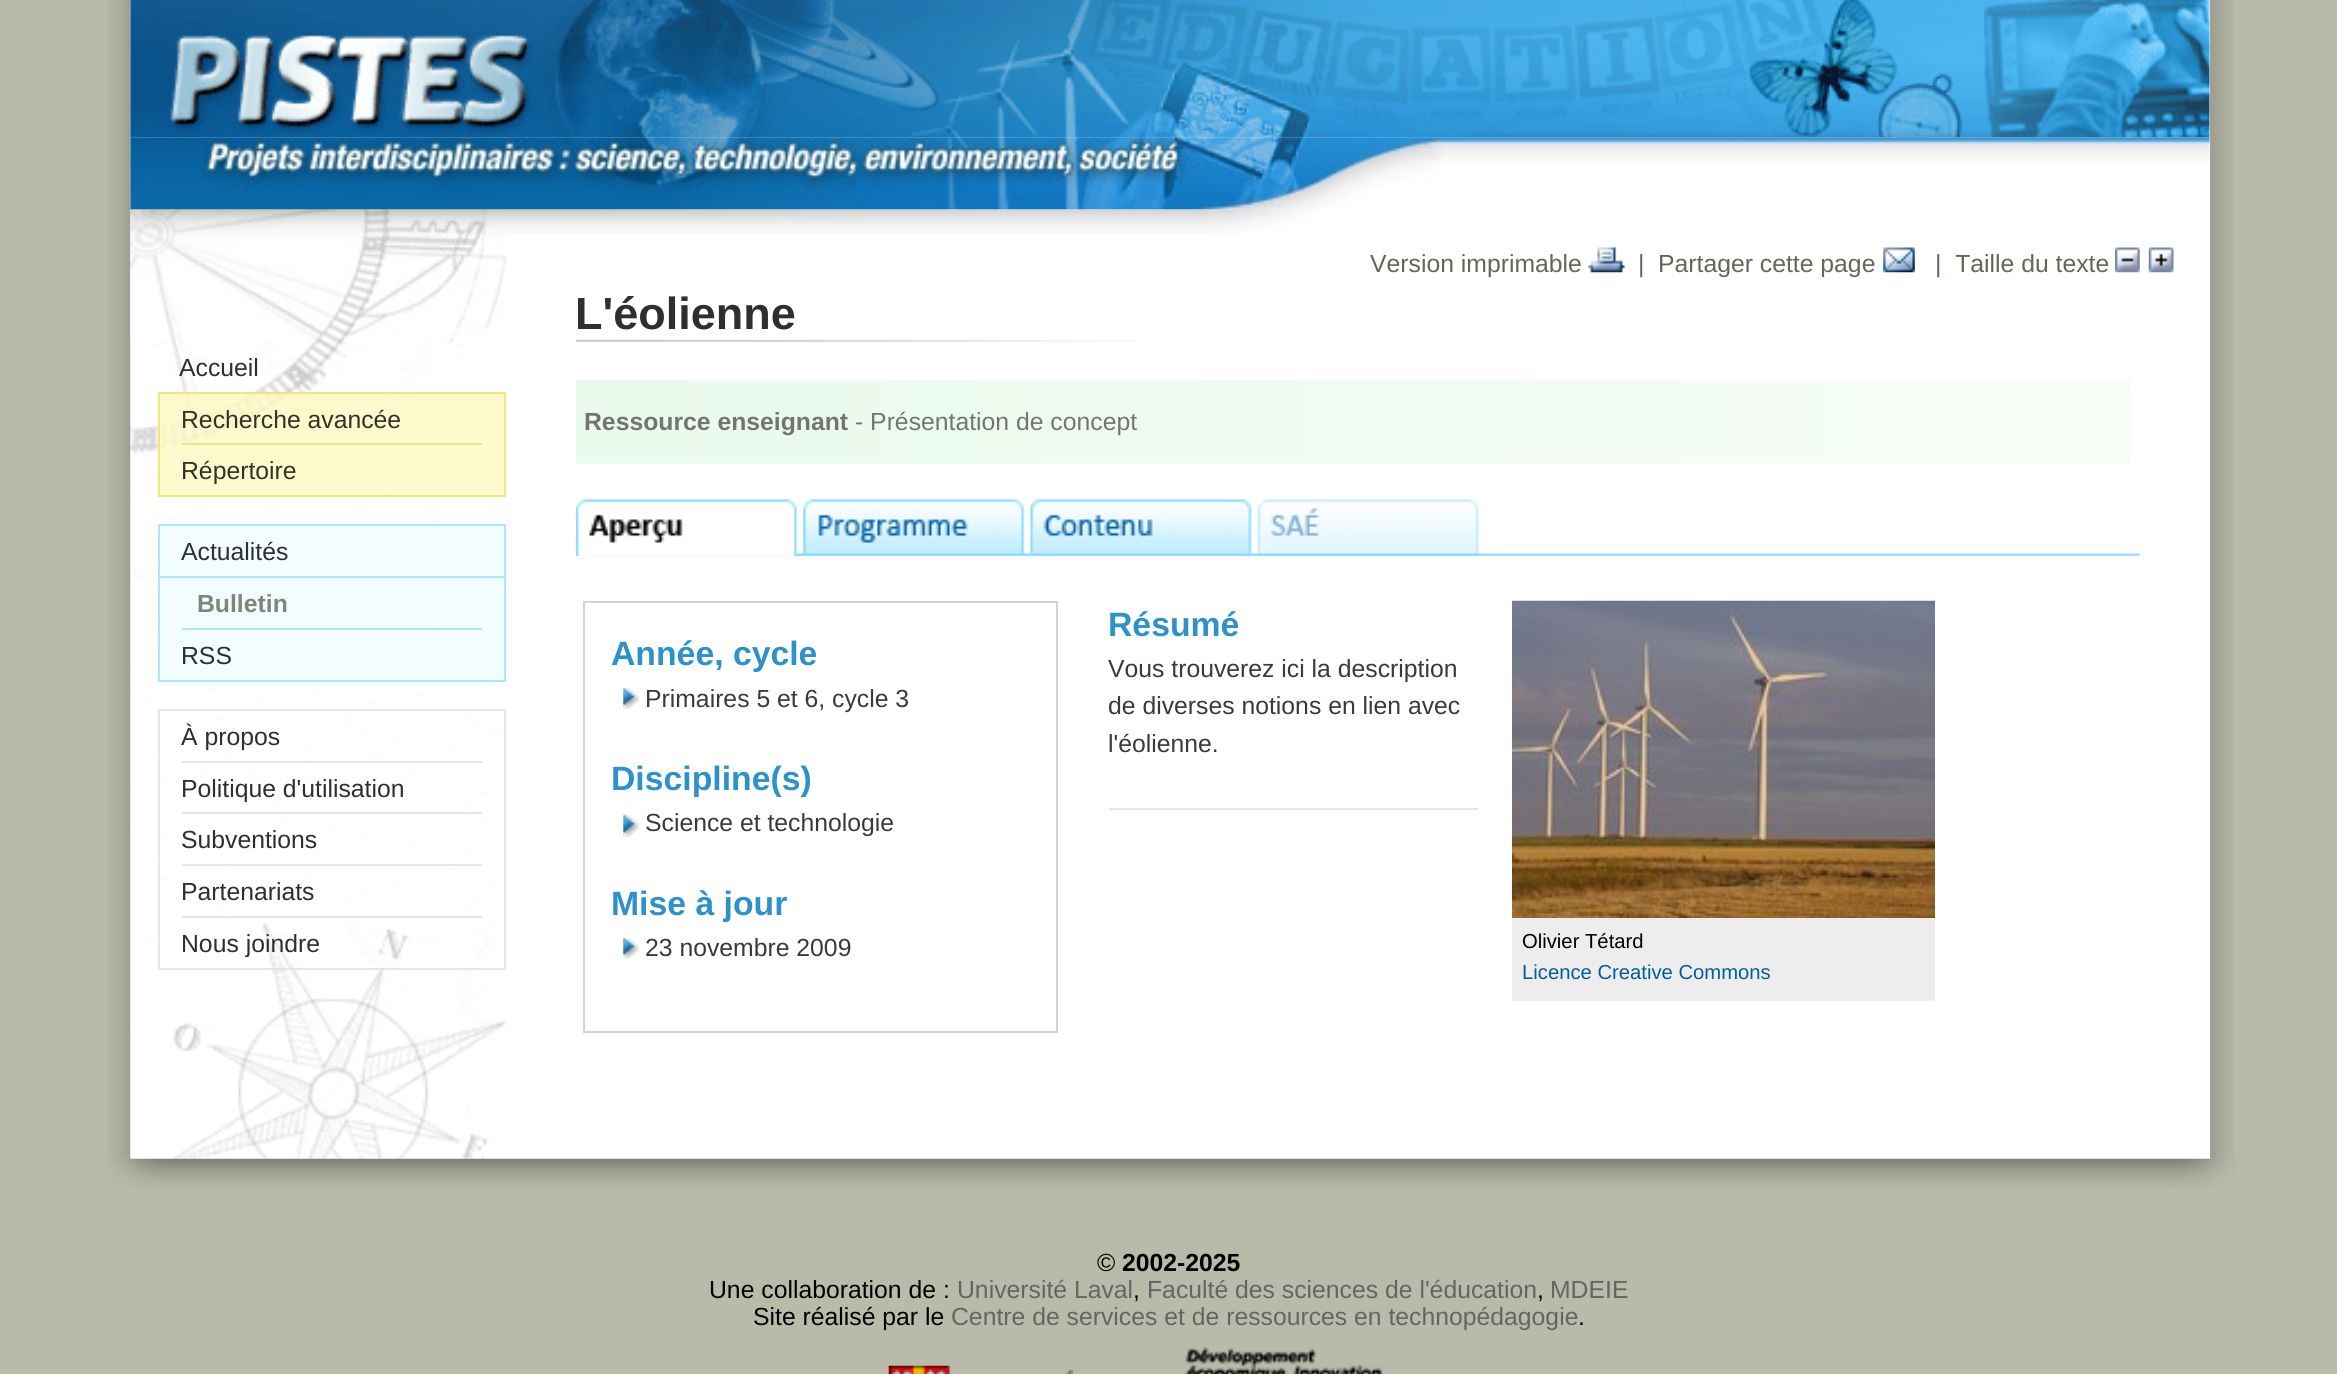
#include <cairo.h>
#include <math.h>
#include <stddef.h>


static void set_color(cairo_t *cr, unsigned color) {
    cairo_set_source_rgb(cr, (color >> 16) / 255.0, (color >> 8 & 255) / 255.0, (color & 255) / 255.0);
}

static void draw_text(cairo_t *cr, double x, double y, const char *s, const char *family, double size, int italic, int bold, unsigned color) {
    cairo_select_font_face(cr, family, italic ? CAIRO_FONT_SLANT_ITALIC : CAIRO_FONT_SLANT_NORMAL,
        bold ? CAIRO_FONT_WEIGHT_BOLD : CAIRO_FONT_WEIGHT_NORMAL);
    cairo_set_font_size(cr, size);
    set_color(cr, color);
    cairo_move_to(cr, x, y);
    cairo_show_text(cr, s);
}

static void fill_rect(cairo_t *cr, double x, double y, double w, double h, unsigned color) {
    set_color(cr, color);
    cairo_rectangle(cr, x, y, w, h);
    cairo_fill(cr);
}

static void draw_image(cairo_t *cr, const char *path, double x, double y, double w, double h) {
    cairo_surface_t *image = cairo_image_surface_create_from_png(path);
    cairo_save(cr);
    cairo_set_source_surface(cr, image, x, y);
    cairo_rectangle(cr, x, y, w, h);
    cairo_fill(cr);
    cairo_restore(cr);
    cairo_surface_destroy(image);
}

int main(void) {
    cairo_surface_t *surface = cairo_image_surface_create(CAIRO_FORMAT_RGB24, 2337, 1374);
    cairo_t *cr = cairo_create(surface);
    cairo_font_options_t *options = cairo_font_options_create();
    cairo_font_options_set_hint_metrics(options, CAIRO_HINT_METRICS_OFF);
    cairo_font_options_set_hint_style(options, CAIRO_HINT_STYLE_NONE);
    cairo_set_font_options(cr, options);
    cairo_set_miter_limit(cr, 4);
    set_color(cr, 0xBABAAB);
    cairo_paint(cr);
    draw_image(cr, "assets/img1.png", 107, 0, 2128, 1159);
    fill_rect(cr, 131, 0, 2079, 1159, 0xFFFFFF);
    draw_image(cr, "assets/img2.png", 130, 0, 2080, 138);
    draw_image(cr, "assets/img4.png", 130, 209, 377, 950);
    draw_image(cr, "assets/img5.png", 130, 209, 377, 133);
    draw_image(cr, "assets/img6.png", 506, 209, 807, 25);
    draw_image(cr, "assets/img3.png", 130, 137, 2080, 73);
    draw_text(cr, 179, 376, "Accueil", "Liberation Sans", 24.75, 0, 0, 0x2F2F2F);
    cairo_set_source_rgba(cr, 1, 0.973, 0.757, 0.8);
    cairo_rectangle(cr, 158, 392, 348, 105);
    cairo_fill(cr);
    cairo_rectangle(cr, 159, 393, 346, 103);
    cairo_set_source_rgba(cr, 0.933, 0.878, 0.396, 0.8);
    cairo_stroke(cr);
    draw_text(cr, 181, 428, "Recherche avancée", "Liberation Sans", 24.75, 0, 0, 0x333229);
    fill_rect(cr, 182, 443, 300, 2, 0xF1E57A);
    draw_text(cr, 181, 479, "Répertoire", "Liberation Sans", 24.75, 0, 0, 0x333229);
    cairo_set_source_rgba(cr, 0.929, 0.988, 1, 0.8);
    cairo_rectangle(cr, 159, 525, 346, 156);
    cairo_fill_preserve(cr);
    set_color(cr, 0xABE6FE);
    cairo_stroke(cr);
    draw_text(cr, 181, 560, "Actualités", "Liberation Sans", 24.75, 0, 0, 0x2F2F2F);
    fill_rect(cr, 160, 576, 344, 2, 0xADE6FE);
    draw_text(cr, 197, 612, "Bulletin", "Liberation Sans", 24.75, 0, 1, 0x828478);
    fill_rect(cr, 182, 628, 300, 2, 0xABE6FE);
    draw_text(cr, 181, 664, "RSS", "Liberation Sans", 24.75, 0, 0, 0x2F2F2F);
    cairo_rectangle(cr, 159, 710, 346, 259);
    cairo_set_source_rgba(cr, 0.875, 0.875, 0.875, 0.8);
    cairo_stroke(cr);
    draw_text(cr, 181, 745, "À propos", "Liberation Sans", 24.75, 0, 0, 0x2F2F2F);
    cairo_set_source_rgba(cr, 0.875, 0.875, 0.875, 0.8);
    cairo_rectangle(cr, 182, 761, 300, 2);
    cairo_fill(cr);
    draw_text(cr, 181, 797, "Politique d'utilisation", "Liberation Sans", 24.75, 0, 0, 0x2F2F2F);
    cairo_set_source_rgba(cr, 0.875, 0.875, 0.875, 0.8);
    cairo_rectangle(cr, 182, 812, 300, 2);
    cairo_fill(cr);
    draw_text(cr, 181, 848, "Subventions", "Liberation Sans", 24.75, 0, 0, 0x2F2F2F);
    fill_rect(cr, 182, 864, 300, 2, 0xE5E5E5);
    draw_text(cr, 181, 900, "Partenariats", "Liberation Sans", 24.75, 0, 0, 0x2F2F2F);
    fill_rect(cr, 182, 916, 300, 2, 0xE5E5E5);
    draw_text(cr, 181, 952, "Nous joindre", "Liberation Sans", 24.75, 0, 0, 0x2F2F2F);
    draw_text(cr, 1370, 272, "Version imprimable", "Liberation Sans", 24.75, 0, 0, 0x666656);
    draw_image(cr, "assets/img7.png", 1588, 247, 37, 26);
    draw_text(cr, 1638, 272, "|", "Liberation Sans", 24.75, 0, 0, 0x666656);
    draw_text(cr, 1658, 272, "Partager cette page", "Liberation Sans", 24.75, 0, 0, 0x666656);
    draw_image(cr, "assets/img8.png", 1883, 247, 32, 26);
    draw_text(cr, 1935, 272, "|  Taille du texte", "Liberation Sans", 24.75, 0, 0, 0x666656);
    draw_image(cr, "assets/img9.png", 2115, 247, 25, 26);
    draw_image(cr, "assets/img10.png", 2148, 247, 26, 26);
    draw_text(cr, 575, 329, "L'éolienne", "Liberation Sans", 45, 0, 1, 0x2F2F2F);
    draw_image(cr, "assets/img11.png", 576, 339, 561, 3);
    draw_image(cr, "assets/img12.png", 576, 380, 1555, 84);
    draw_text(cr, 584, 430, "Ressource enseignant", "Liberation Sans", 24.75, 0, 1, 0x747472);
    draw_text(cr, 855, 430, "- Présentation de concept", "Liberation Sans", 24.75, 0, 0, 0x747472);
    draw_image(cr, "assets/img13.png", 576, 552, 1564, 4);
    draw_image(cr, "assets/img14.png", 576, 499, 228, 57);
    draw_image(cr, "assets/img15.png", 803, 499, 228, 57);
    draw_image(cr, "assets/img16.png", 1030, 499, 228, 57);
    draw_image(cr, "assets/img17.png", 1257, 499, 228, 57);
    cairo_rectangle(cr, 584, 602, 473, 430);
    set_color(cr, 0xD3D4D6);
    cairo_stroke(cr);
    draw_text(cr, 611, 665, "Année, cycle", "Liberation Sans", 33.75, 0, 1, 0x2D91CB);
    draw_image(cr, "assets/img18.png", 623, 688, 16, 21);
    draw_text(cr, 645, 707, "Primaires 5 et 6, cycle 3", "Liberation Sans", 24.75, 0, 0, 0x3A3A3A);
    draw_text(cr, 611, 790, "Discipline(s)", "Liberation Sans", 33.75, 0, 1, 0x2D91CB);
    draw_image(cr, "assets/img19.png", 623, 814, 16, 23);
    draw_text(cr, 645, 831, "Science et technologie", "Liberation Sans", 24.75, 0, 0, 0x3A3A3A);
    draw_text(cr, 611, 915, "Mise à jour", "Liberation Sans", 33.75, 0, 1, 0x2D91CB);
    draw_image(cr, "assets/img20.png", 623, 937, 16, 22);
    draw_text(cr, 645, 956, "23 novembre 2009", "Liberation Sans", 24.75, 0, 0, 0x3A3A3A);
    draw_text(cr, 1108, 636, "Résumé", "Liberation Sans", 33.75, 0, 1, 0x2D91CB);
    draw_text(cr, 1108, 677, "Vous trouverez ici la description", "Liberation Sans", 24.75, 0, 0, 0x3A3A3A);
    draw_text(cr, 1108, 714, "de diverses notions en lien avec", "Liberation Sans", 24.75, 0, 0, 0x3A3A3A);
    draw_text(cr, 1108, 752, "l'éolienne.", "Liberation Sans", 24.75, 0, 0, 0x3A3A3A);
    fill_rect(cr, 1109, 808, 369, 2, 0xE6E6E6);
    draw_image(cr, "assets/img21.png", 1512, 600, 423, 318);
    fill_rect(cr, 1512, 918, 423, 83, 0xEDEDED);
    draw_text(cr, 1522, 948, "Olivier Tétard", "Liberation Sans", 20.25, 0, 0, 0x000000);
    draw_text(cr, 1522, 979, "Licence Creative Commons", "Liberation Sans", 20.25, 0, 0, 0x005E9F);
    draw_image(cr, "assets/img22.png", 105, 1158, 2133, 32);
    draw_text(cr, 1097, 1271, "©", "Liberation Sans", 24.75, 0, 0, 0x000000);
    draw_text(cr, 1122, 1271, "2002-2025", "Liberation Sans", 24.75, 0, 1, 0x000000);
    draw_text(cr, 709, 1298, "Une collaboration de :", "Liberation Sans", 24.75, 0, 0, 0x000000);
    draw_text(cr, 957, 1298, "Université Laval", "Liberation Sans", 24.75, 0, 0, 0x646464);
    draw_text(cr, 1133, 1298, ",", "Liberation Sans", 24.75, 0, 0, 0x000000);
    draw_text(cr, 1147, 1298, "Faculté des sciences de l'éducation", "Liberation Sans", 24.75, 0, 0, 0x646464);
    draw_text(cr, 1537, 1298, ",", "Liberation Sans", 24.75, 0, 0, 0x000000);
    draw_text(cr, 1550, 1298, "MDEIE", "Liberation Sans", 24.75, 0, 0, 0x646464);
    draw_text(cr, 753, 1325, "Site réalisé par le", "Liberation Sans", 24.75, 0, 0, 0x000000);
    draw_text(cr, 951, 1325, "Centre de services et de ressources en technopédagogie", "Liberation Sans", 24.75, 0, 0, 0x646464);
    draw_text(cr, 1578, 1325, ".", "Liberation Sans", 24.75, 0, 0, 0x000000);
    draw_image(cr, "assets/img23.png", 888, 1365, 186, 9);
    draw_image(cr, "assets/img24.png", 1185, 1347, 198, 27);
    cairo_surface_write_to_png(surface, "output.png");
    cairo_font_options_destroy(options);
    cairo_destroy(cr);
    cairo_surface_destroy(surface);
    return 0;
}
